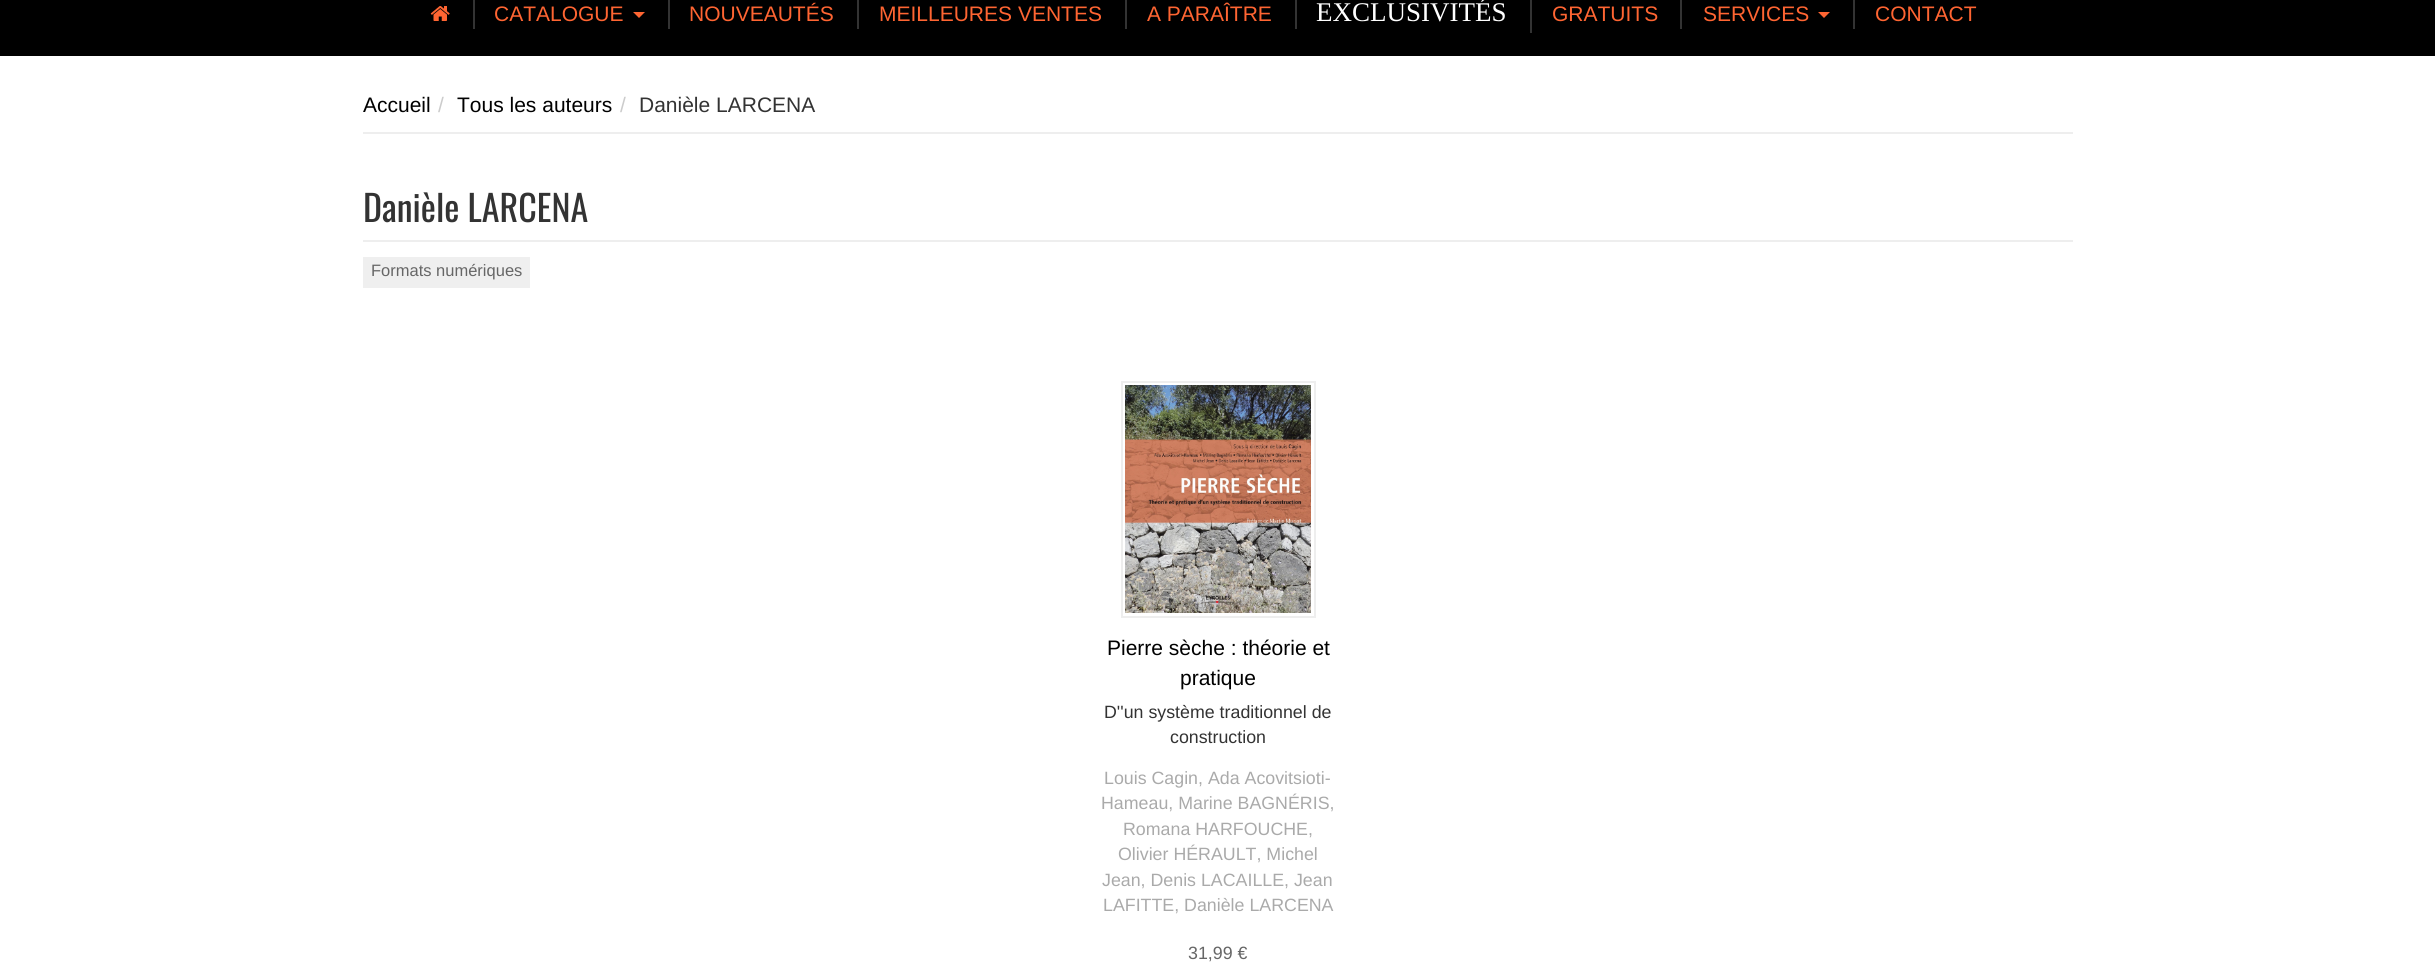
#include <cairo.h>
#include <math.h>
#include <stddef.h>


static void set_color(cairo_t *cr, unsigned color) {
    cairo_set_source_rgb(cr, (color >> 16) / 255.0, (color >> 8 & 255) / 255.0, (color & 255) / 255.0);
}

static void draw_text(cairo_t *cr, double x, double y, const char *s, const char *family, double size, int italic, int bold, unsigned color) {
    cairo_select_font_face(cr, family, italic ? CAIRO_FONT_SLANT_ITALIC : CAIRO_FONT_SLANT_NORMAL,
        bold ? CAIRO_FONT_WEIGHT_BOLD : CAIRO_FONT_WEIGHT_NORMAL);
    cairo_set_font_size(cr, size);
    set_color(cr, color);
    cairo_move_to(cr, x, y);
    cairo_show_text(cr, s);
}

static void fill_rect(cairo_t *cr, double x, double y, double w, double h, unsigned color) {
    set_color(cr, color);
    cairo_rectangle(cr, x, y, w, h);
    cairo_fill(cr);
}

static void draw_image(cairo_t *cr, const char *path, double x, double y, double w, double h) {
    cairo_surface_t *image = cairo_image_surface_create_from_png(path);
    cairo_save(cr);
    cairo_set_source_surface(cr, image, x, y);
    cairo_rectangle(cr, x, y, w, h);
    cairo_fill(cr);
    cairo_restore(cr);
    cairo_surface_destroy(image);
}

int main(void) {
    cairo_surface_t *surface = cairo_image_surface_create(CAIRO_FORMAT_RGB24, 2435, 974);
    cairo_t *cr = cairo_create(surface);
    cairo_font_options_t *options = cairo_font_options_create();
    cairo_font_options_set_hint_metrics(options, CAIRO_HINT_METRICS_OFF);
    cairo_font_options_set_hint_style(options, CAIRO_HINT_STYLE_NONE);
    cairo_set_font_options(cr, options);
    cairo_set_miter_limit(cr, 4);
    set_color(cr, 0xFFFFFF);
    cairo_paint(cr);
    fill_rect(cr, 0, 0, 2435, 56, 0x000000);
    fill_rect(cr, 473, 0, 2, 29, 0x333333);
    draw_image(cr, "assets/img1.png", 430, 6, 20, 15);
    fill_rect(cr, 668, 0, 2, 29, 0x333333);
    draw_text(cr, 494, 21, "CATALOGUE", "Liberation Sans", 21, 0, 0, 0xFF6532);
    cairo_new_path(cr);
    cairo_move_to(cr, 633, 12);
    cairo_line_to(cr, 645, 12);
    cairo_line_to(cr, 639, 18);
    cairo_close_path(cr);
    cairo_fill(cr);
    fill_rect(cr, 857, 0, 2, 29, 0x333333);
    draw_text(cr, 689, 21, "NOUVEAUTÉS", "Liberation Sans", 21, 0, 0, 0xFF6532);
    fill_rect(cr, 1125, 0, 2, 29, 0x333333);
    draw_text(cr, 879, 21, "MEILLEURES VENTES", "Liberation Sans", 21, 0, 0, 0xFF6532);
    fill_rect(cr, 1295, 0, 2, 29, 0x333333);
    draw_text(cr, 1147, 21, "A PARAÎTRE", "Liberation Sans", 21, 0, 0, 0xFF6532);
    fill_rect(cr, 1530, 0, 2, 33, 0x333333);
    draw_text(cr, 1316, 21, "EXCLUSIVITÉS", "Liberation Serif", 27, 0, 0, 0xFFFFFF);
    fill_rect(cr, 1680, 0, 2, 29, 0x333333);
    draw_text(cr, 1552, 21, "GRATUITS", "Liberation Sans", 21, 0, 0, 0xFF6532);
    fill_rect(cr, 1853, 0, 2, 29, 0x333333);
    draw_text(cr, 1703, 21, "SERVICES", "Liberation Sans", 21, 0, 0, 0xFF6532);
    cairo_new_path(cr);
    cairo_move_to(cr, 1818, 12);
    cairo_line_to(cr, 1830, 12);
    cairo_line_to(cr, 1824, 18);
    cairo_close_path(cr);
    cairo_fill(cr);
    draw_text(cr, 1875, 21, "CONTACT", "Liberation Sans", 21, 0, 0, 0xFF6532);
    fill_rect(cr, 363, 132, 1710, 2, 0xEEEEEE);
    draw_text(cr, 363, 112, "Accueil", "Liberation Sans", 21, 0, 0, 0x000000);
    draw_text(cr, 438, 112, "/", "Liberation Sans", 21, 0, 0, 0xCCCCCC);
    draw_text(cr, 457, 112, "Tous les auteurs", "Liberation Sans", 21, 0, 0, 0x000000);
    draw_text(cr, 620, 112, "/", "Liberation Sans", 21, 0, 0, 0xCCCCCC);
    draw_text(cr, 639, 112, "Danièle LARCENA", "Liberation Sans", 21, 0, 0, 0x333333);
    draw_text(cr, 363, 222, "Danièle LARCENA", "Oswald", 36, 0, 0, 0x333333);
    fill_rect(cr, 363, 240, 1710, 2, 0xEEEEEE);
    fill_rect(cr, 363, 257, 167, 31, 0xEFEFEF);
    draw_text(cr, 371, 276, "Formats numériques", "Liberation Sans", 16.5, 0, 0, 0x666666);
    cairo_rectangle(cr, 1122, 382, 193, 235);
    set_color(cr, 0xEEEEEE);
    cairo_stroke(cr);
    draw_image(cr, "assets/img2.png", 1125, 385, 186, 228);
    draw_text(cr, 1107, 655, "Pierre sèche : théorie et", "Liberation Sans", 21, 0, 0, 0x000000);
    draw_text(cr, 1180, 685, "pratique", "Liberation Sans", 21, 0, 0, 0x000000);
    draw_text(cr, 1104, 718, "D''un système traditionnel de", "Liberation Sans", 17.8, 0, 0, 0x333333);
    draw_text(cr, 1170, 743, "construction", "Liberation Sans", 17.8, 0, 0, 0x333333);
    draw_text(cr, 1104, 784, "Louis Cagin, Ada Acovitsioti-", "Liberation Sans", 17.8, 0, 0, 0xAAAAAA);
    draw_text(cr, 1101, 809, "Hameau, Marine BAGNÉRIS,", "Liberation Sans", 17.8, 0, 0, 0xAAAAAA);
    draw_text(cr, 1123, 835, "Romana HARFOUCHE,", "Liberation Sans", 17.8, 0, 0, 0xAAAAAA);
    draw_text(cr, 1118, 860, "Olivier HÉRAULT, Michel", "Liberation Sans", 17.8, 0, 0, 0xAAAAAA);
    draw_text(cr, 1102, 886, "Jean, Denis LACAILLE, Jean", "Liberation Sans", 17.8, 0, 0, 0xAAAAAA);
    draw_text(cr, 1103, 911, "LAFITTE, Danièle LARCENA", "Liberation Sans", 17.8, 0, 0, 0xAAAAAA);
    draw_text(cr, 1188, 959, "31,99 €", "Liberation Sans", 17.8, 0, 0, 0x666666);
    cairo_surface_write_to_png(surface, "output.png");
    cairo_font_options_destroy(options);
    cairo_destroy(cr);
    cairo_surface_destroy(surface);
    return 0;
}
